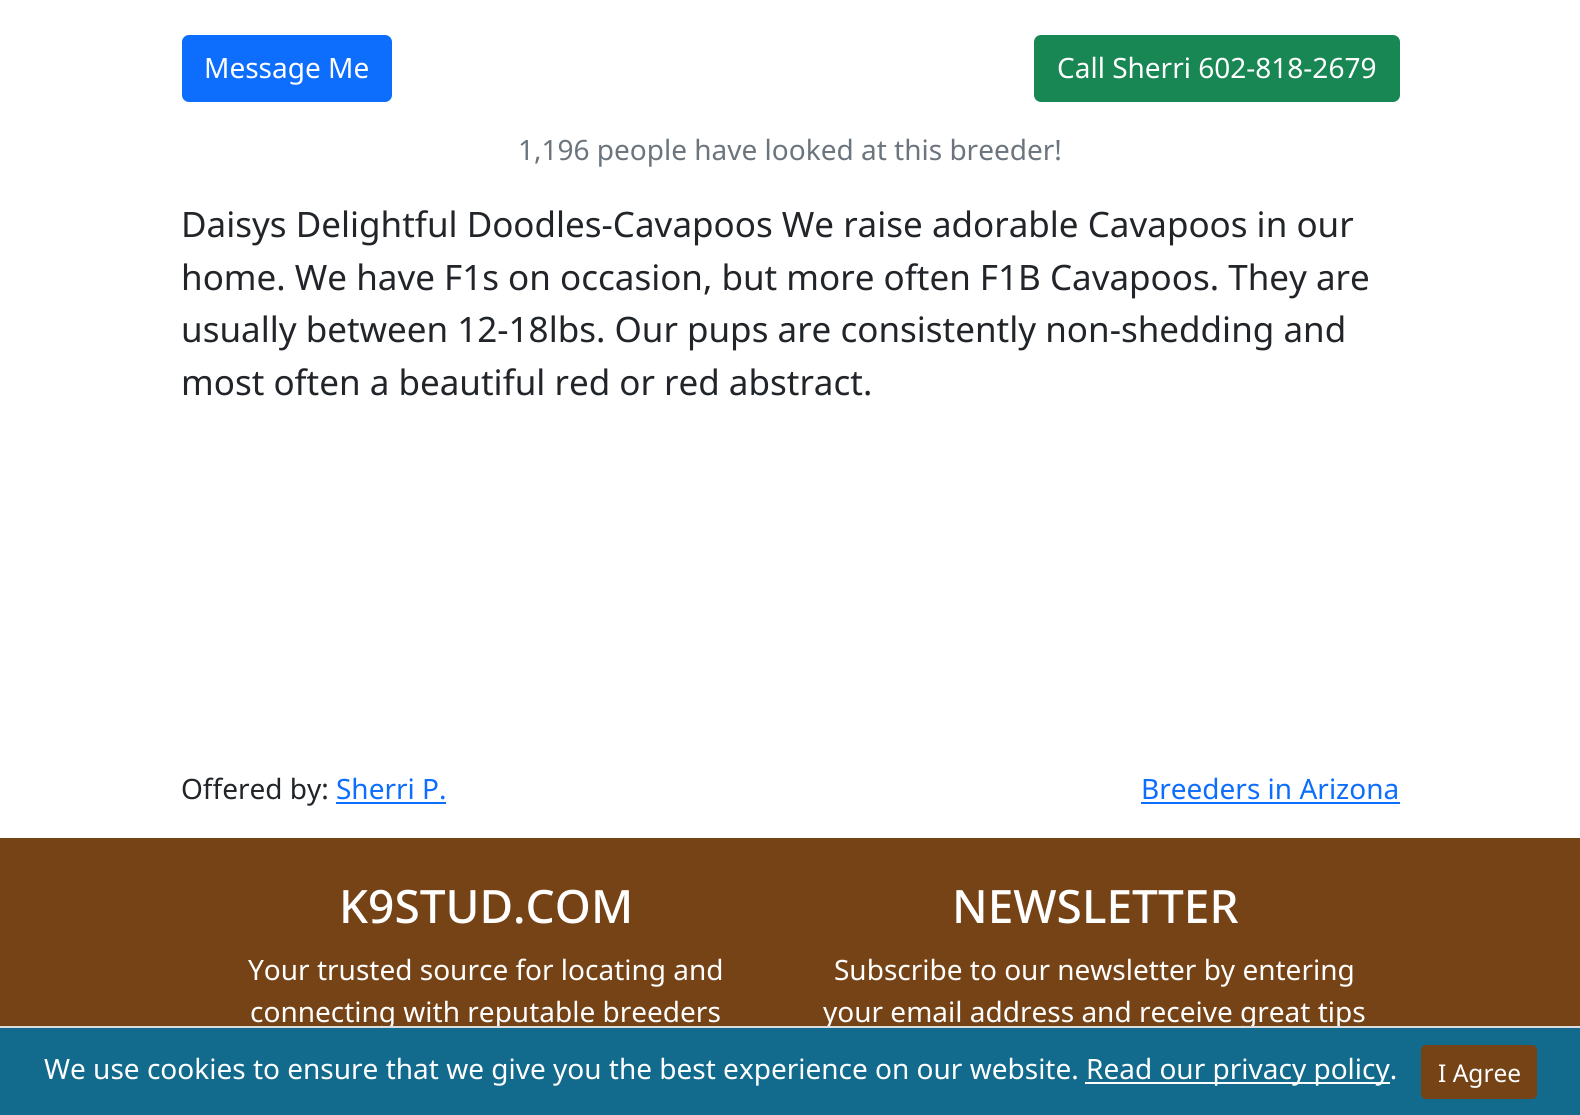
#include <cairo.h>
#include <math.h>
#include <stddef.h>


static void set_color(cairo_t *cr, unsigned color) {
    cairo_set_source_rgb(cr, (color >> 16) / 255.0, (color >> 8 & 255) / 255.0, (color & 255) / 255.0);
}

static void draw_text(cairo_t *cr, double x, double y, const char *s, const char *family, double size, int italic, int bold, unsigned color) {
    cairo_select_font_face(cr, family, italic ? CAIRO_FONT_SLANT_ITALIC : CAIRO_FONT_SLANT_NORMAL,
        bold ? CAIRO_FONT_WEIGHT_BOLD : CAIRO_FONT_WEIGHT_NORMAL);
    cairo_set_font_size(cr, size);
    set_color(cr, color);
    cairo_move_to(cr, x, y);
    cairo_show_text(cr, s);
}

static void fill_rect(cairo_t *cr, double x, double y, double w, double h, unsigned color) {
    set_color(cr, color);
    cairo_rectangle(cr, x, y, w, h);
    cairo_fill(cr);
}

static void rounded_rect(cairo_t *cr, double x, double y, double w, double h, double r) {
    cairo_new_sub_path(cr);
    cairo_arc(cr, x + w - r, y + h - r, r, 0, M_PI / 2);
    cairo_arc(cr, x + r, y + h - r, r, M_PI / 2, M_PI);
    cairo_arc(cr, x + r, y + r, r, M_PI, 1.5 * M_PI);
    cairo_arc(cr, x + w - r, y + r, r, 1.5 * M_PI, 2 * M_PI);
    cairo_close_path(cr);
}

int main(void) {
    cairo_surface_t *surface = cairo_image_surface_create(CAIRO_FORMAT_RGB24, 1580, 1115);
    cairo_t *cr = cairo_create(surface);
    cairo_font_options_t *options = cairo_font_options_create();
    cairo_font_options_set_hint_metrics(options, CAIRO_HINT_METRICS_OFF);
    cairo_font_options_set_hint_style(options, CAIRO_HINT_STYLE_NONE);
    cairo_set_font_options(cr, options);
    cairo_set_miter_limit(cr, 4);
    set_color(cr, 0xFFFFFF);
    cairo_paint(cr);
    set_color(cr, 0x0D6EFD);
    rounded_rect(cr, 183, 36, 208, 65, 6);
    cairo_fill_preserve(cr);
    cairo_stroke(cr);
    draw_text(cr, 204, 78, "Message Me", "Noto Sans", 28, 0, 0, 0xFFFFFF);
    set_color(cr, 0x198754);
    rounded_rect(cr, 1035, 36, 364, 65, 6);
    cairo_fill_preserve(cr);
    cairo_stroke(cr);
    draw_text(cr, 1057, 78, "Call Sherri 602-818-2679", "Noto Sans", 28, 0, 0, 0xFFFFFF);
    draw_text(cr, 518, 160, "1,196 people have looked at this breeder!", "Noto Sans", 28, 0, 0, 0x6C757D);
    draw_text(cr, 181, 237, "Daisys Delightful Doodles-Cavapoos We raise adorable Cavapoos in our", "Noto Sans", 35, 0, 0, 0x212529);
    draw_text(cr, 181, 290, "home. We have F1s on occasion, but more often F1B Cavapoos. They are", "Noto Sans", 35, 0, 0, 0x212529);
    draw_text(cr, 181, 342, "usually between 12-18lbs. Our pups are consistently non-shedding and", "Noto Sans", 35, 0, 0, 0x212529);
    draw_text(cr, 181, 395, "most often a beautiful red or red abstract.", "Noto Sans", 35, 0, 0, 0x212529);
    draw_text(cr, 181, 799, "Offered by:", "Noto Sans", 28, 0, 0, 0x212529);
    draw_text(cr, 336, 799, "Sherri P.", "Noto Sans", 28, 0, 0, 0x0D6EFD);
    fill_rect(cr, 336, 802, 110, 2, 0x0D6EFD);
    draw_text(cr, 1141, 799, "Breeders in Arizona", "Noto Sans", 28, 0, 0, 0x0D6EFD);
    fill_rect(cr, 1141, 802, 259, 2, 0x0D6EFD);
    fill_rect(cr, 0, 838, 1580, 188, 0x764316);
    draw_text(cr, 339, 923, "K9STUD.COM", "Noto Sans Medium", 46, 0, 0, 0xFFFFFF);
    draw_text(cr, 248, 980, "Your trusted source for locating and", "Noto Sans", 28, 0, 0, 0xFFFFFF);
    draw_text(cr, 250, 1022, "connecting with reputable breeders", "Noto Sans", 28, 0, 0, 0xFFFFFF);
    draw_text(cr, 952, 923, "NEWSLETTER", "Noto Sans Medium", 46, 0, 0, 0xFFFFFF);
    draw_text(cr, 834, 980, "Subscribe to our newsletter by entering", "Noto Sans", 28, 0, 0, 0xFFFFFF);
    draw_text(cr, 823, 1022, "your email address and receive great tips", "Noto Sans", 28, 0, 0, 0xFFFFFF);
    fill_rect(cr, 0, 1028, 1580, 87, 0x126A8C);
    fill_rect(cr, 0, 1026, 1580, 2, 0xDDDDDD);
    draw_text(cr, 44, 1079, "We use cookies to ensure that we give you the best experience on our website.", "Noto Sans", 28, 0, 0, 0xFFFFFF);
    fill_rect(cr, 1085, 1082, 305, 2, 0xFFFFFF);
    draw_text(cr, 1086, 1079, "Read our privacy policy.", "Noto Sans", 28, 0, 0, 0xFFFFFF);
    set_color(cr, 0x764316);
    rounded_rect(cr, 1422, 1046, 114, 52, 4);
    cairo_fill_preserve(cr);
    cairo_stroke(cr);
    draw_text(cr, 1438, 1082, "I Agree", "Noto Sans", 24.5, 0, 0, 0xFFFFFF);
    cairo_surface_write_to_png(surface, "output.png");
    cairo_font_options_destroy(options);
    cairo_destroy(cr);
    cairo_surface_destroy(surface);
    return 0;
}
